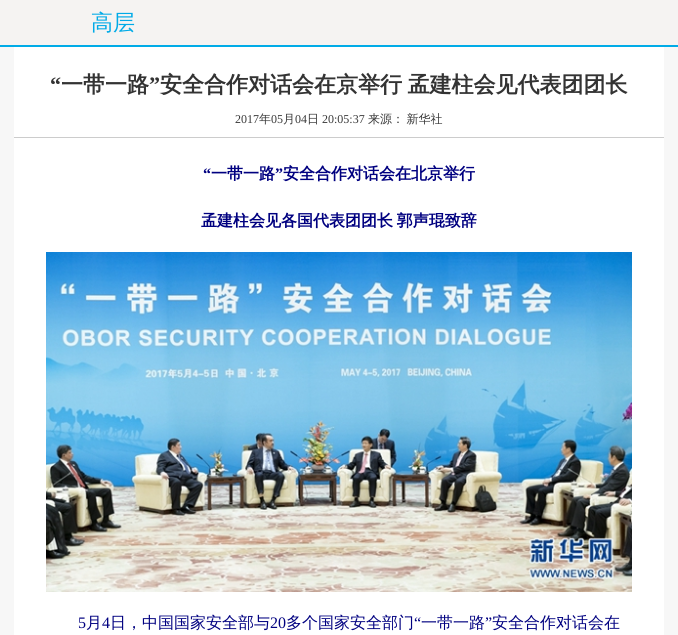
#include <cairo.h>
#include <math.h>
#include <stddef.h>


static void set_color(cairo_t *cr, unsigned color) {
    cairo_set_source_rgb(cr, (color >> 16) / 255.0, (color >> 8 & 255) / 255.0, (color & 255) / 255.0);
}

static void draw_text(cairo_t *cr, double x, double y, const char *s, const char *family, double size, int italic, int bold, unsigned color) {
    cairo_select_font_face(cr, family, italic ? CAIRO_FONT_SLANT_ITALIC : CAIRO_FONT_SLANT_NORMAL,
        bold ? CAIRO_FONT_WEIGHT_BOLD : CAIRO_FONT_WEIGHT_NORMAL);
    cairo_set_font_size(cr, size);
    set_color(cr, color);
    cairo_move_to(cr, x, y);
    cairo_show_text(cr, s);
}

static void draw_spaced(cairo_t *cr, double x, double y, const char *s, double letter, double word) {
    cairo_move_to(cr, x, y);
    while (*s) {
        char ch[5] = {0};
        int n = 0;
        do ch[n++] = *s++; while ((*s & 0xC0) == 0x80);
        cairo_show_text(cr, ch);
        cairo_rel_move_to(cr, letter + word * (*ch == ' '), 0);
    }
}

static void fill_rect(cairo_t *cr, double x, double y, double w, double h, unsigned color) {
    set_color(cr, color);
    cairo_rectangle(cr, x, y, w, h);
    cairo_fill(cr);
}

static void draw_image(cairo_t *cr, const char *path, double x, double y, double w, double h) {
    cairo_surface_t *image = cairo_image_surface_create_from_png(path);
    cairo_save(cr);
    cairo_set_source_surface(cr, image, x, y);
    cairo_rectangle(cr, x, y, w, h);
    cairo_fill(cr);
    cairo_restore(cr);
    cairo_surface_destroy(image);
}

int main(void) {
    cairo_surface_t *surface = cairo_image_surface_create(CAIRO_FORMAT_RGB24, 678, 635);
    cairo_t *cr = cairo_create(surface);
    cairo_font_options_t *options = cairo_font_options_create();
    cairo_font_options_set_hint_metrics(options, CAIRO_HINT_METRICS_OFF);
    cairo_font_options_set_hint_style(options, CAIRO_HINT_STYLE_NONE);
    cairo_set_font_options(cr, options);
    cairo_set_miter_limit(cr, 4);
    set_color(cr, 0xF7F7F7);
    cairo_paint(cr);
    fill_rect(cr, 0, 0, 678, 45, 0xF5F3F2);
    fill_rect(cr, 0, 45, 678, 2, 0x00ABE7);
    draw_text(cr, 91, 30, "高层", "WenQuanYi Zen Hei Medium", 22, 0, 0, 0x00AAE7);
    fill_rect(cr, 14, 47, 650, 588, 0xFFFFFF);
    draw_text(cr, 50, 92, "“", "Liberation Serif", 22, 0, 1, 0x333333);
    draw_text(cr, 61, 92, "一带一路", "WenQuanYi Zen Hei", 22, 0, 1, 0x333333);
    draw_text(cr, 149, 92, "”", "Liberation Serif", 22, 0, 1, 0x333333);
    cairo_select_font_face(cr, "WenQuanYi Zen Hei", CAIRO_FONT_SLANT_NORMAL, CAIRO_FONT_WEIGHT_BOLD);
    draw_spaced(cr, 160, 92, "安全合作对话会在京举行 孟建柱会见代表团团长", 0, -1);
    fill_rect(cr, 14, 137, 650, 1, 0xCCCCCC);
    draw_text(cr, 235, 123, "2017", "Liberation Serif", 12, 0, 0, 0x393939);
    draw_text(cr, 259, 123, "年", "WenQuanYi Zen Hei Medium", 12, 0, 0, 0x393939);
    draw_text(cr, 271, 123, "05", "Liberation Serif", 12, 0, 0, 0x393939);
    draw_text(cr, 283, 123, "月", "WenQuanYi Zen Hei Medium", 12, 0, 0, 0x393939);
    draw_text(cr, 295, 123, "04", "Liberation Serif", 12, 0, 0, 0x393939);
    draw_text(cr, 307, 123, "日", "WenQuanYi Zen Hei Medium", 12, 0, 0, 0x393939);
    draw_text(cr, 322, 123, "20:05:37", "Liberation Serif", 12, 0, 0, 0x393939);
    cairo_select_font_face(cr, "WenQuanYi Zen Hei Medium", CAIRO_FONT_SLANT_NORMAL, CAIRO_FONT_WEIGHT_NORMAL);
    draw_spaced(cr, 368, 123, "来源： 新华社", 0, -1);
    draw_text(cr, 203, 179, "“", "Liberation Serif", 16, 0, 1, 0x000080);
    draw_text(cr, 211, 179, "一带一路", "WenQuanYi Zen Hei", 16, 0, 1, 0x000080);
    draw_text(cr, 275, 179, "”", "Liberation Serif", 16, 0, 1, 0x000080);
    draw_text(cr, 283, 179, "安全合作对话会在北京举行", "WenQuanYi Zen Hei", 16, 0, 1, 0x000080);
    draw_spaced(cr, 201, 226, "孟建柱会见各国代表团团长 郭声琨致辞", 0, -1);
    draw_image(cr, "assets/img1.png", 46, 252, 586, 340);
    draw_text(cr, 78, 628, "5", "Liberation Serif", 16, 0, 0, 0x000080);
    draw_text(cr, 86, 628, "月", "WenQuanYi Zen Hei Medium", 16, 0, 0, 0x000080);
    draw_text(cr, 102, 628, "4", "Liberation Serif", 16, 0, 0, 0x000080);
    draw_text(cr, 110, 628, "日，中国国家安全部与", "WenQuanYi Zen Hei Medium", 16, 0, 0, 0x000080);
    draw_text(cr, 270, 628, "20", "Liberation Serif", 16, 0, 0, 0x000080);
    draw_text(cr, 286, 628, "多个国家安全部门", "WenQuanYi Zen Hei Medium", 16, 0, 0, 0x000080);
    draw_text(cr, 414, 628, "“", "Liberation Serif", 16, 0, 0, 0x000080);
    draw_text(cr, 421, 628, "一带一路", "WenQuanYi Zen Hei Medium", 16, 0, 0, 0x000080);
    draw_text(cr, 485, 628, "”", "Liberation Serif", 16, 0, 0, 0x000080);
    draw_text(cr, 492, 628, "安全合作对话会在", "WenQuanYi Zen Hei Medium", 16, 0, 0, 0x000080);
    cairo_surface_write_to_png(surface, "output.png");
    cairo_font_options_destroy(options);
    cairo_destroy(cr);
    cairo_surface_destroy(surface);
    return 0;
}
